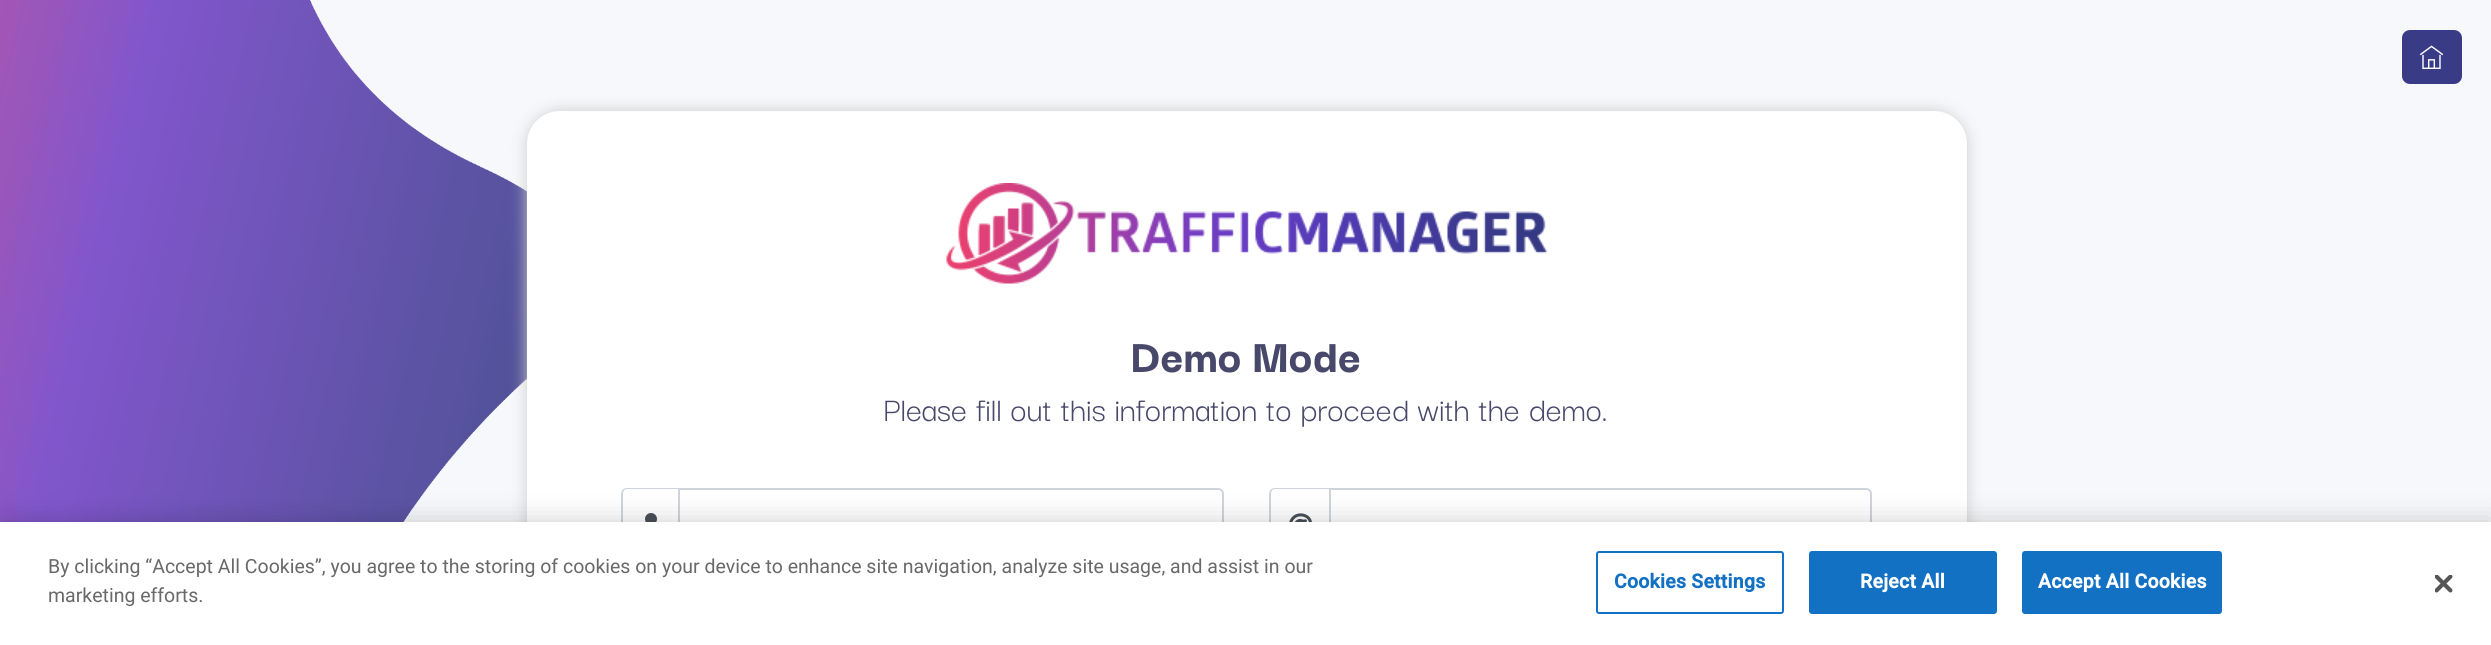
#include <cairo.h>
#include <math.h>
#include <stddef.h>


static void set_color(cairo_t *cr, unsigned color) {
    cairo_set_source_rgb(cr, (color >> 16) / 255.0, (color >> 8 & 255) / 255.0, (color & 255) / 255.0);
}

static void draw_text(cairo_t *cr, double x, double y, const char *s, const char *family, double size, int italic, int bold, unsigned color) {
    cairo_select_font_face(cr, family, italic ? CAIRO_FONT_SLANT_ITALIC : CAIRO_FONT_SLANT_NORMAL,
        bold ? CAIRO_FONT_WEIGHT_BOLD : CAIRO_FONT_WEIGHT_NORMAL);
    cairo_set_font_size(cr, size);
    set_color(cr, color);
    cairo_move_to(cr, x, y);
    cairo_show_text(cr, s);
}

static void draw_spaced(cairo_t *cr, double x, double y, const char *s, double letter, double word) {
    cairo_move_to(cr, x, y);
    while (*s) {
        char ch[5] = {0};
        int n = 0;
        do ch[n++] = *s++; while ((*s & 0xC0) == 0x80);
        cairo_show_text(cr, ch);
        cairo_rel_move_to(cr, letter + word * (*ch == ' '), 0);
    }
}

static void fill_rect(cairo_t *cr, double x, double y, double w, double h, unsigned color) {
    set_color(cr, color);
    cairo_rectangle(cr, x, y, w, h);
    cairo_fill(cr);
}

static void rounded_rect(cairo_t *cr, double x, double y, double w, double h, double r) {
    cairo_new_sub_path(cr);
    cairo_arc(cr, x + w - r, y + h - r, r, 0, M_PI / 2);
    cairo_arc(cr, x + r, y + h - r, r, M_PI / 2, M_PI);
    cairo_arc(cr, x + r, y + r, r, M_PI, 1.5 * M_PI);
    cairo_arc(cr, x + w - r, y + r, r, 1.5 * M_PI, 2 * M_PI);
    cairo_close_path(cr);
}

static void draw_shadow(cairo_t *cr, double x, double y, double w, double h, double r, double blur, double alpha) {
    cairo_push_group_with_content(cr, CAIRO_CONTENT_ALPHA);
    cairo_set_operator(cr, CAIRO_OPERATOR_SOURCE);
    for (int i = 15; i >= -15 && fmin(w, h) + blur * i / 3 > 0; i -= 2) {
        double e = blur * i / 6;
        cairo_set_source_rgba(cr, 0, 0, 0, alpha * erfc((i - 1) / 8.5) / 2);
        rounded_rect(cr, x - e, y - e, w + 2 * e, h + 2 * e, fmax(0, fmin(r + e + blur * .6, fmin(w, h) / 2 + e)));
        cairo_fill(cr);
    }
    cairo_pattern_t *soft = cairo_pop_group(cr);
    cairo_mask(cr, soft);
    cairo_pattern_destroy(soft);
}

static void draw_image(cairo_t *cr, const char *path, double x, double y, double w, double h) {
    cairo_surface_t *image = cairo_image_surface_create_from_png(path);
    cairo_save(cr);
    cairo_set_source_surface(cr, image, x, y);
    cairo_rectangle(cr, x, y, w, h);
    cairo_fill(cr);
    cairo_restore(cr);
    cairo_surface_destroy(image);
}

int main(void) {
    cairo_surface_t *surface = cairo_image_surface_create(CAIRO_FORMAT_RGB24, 2491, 645);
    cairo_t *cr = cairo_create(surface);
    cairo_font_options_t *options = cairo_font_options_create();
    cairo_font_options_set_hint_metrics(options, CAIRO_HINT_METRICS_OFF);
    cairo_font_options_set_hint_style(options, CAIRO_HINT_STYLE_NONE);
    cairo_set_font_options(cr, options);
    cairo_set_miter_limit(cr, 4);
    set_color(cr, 0xF7F8FB);
    cairo_paint(cr);
    draw_image(cr, "assets/img1.png", 0, 0, 527, 522);
    set_color(cr, 0x393B87);
    rounded_rect(cr, 2402, 30, 60, 54, 8);
    cairo_fill(cr);
    draw_image(cr, "assets/img2.png", 2419, 45, 25, 24);
    set_color(cr, 0xCCCCCC);
    draw_shadow(cr, 527, 111, 1440, 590, 33, 7.5, 1);
    set_color(cr, 0xFFFFFF);
    rounded_rect(cr, 527, 111, 1440, 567, 33);
    cairo_fill(cr);
    draw_image(cr, "assets/img3.png", 946, 183, 601, 101);
    draw_text(cr, 1130, 372, "Demo Mode", "Darker Grotesque ExtraBold", 49.5, 0, 0, 0x48486A);
    draw_text(cr, 883, 421, "Please fill out this information to proceed with the demo.", "Darker Grotesque", 36, 0, 0, 0x48486A);
    set_color(cr, 0xCED4DA);
    cairo_set_fill_rule(cr, CAIRO_FILL_RULE_EVEN_ODD);
    cairo_new_path(cr);
    cairo_move_to(cr, 627, 488);
    cairo_line_to(cr, 680, 488);
    cairo_line_to(cr, 680, 562);
    cairo_line_to(cr, 627, 562);
    cairo_curve_to(cr, 624, 562, 621, 560, 621, 556);
    cairo_line_to(cr, 621, 494);
    cairo_curve_to(cr, 621, 490, 624, 488, 627, 488);
    cairo_close_path(cr);
    cairo_move_to(cr, 627, 489);
    cairo_line_to(cr, 680, 489);
    cairo_line_to(cr, 680, 561);
    cairo_curve_to(cr, 673, 561, 627, 562, 624, 560);
    cairo_line_to(cr, 623, 557);
    cairo_line_to(cr, 623, 493);
    cairo_line_to(cr, 624, 490);
    cairo_close_path(cr);
    cairo_fill(cr);
    draw_image(cr, "assets/img4.png", 645, 513, 12, 9);
    cairo_new_path(cr);
    cairo_move_to(cr, 679, 489);
    cairo_line_to(cr, 1218, 489);
    cairo_curve_to(cr, 1221, 489, 1223, 491, 1223, 494);
    cairo_line_to(cr, 1223, 557);
    cairo_curve_to(cr, 1223, 560, 1221, 562, 1218, 562);
    cairo_line_to(cr, 679, 562);
    cairo_close_path(cr);
    cairo_stroke(cr);
    cairo_new_path(cr);
    cairo_move_to(cr, 1275, 488);
    cairo_line_to(cr, 1330, 488);
    cairo_line_to(cr, 1330, 562);
    cairo_line_to(cr, 1275, 562);
    cairo_curve_to(cr, 1272, 562, 1269, 560, 1269, 556);
    cairo_line_to(cr, 1269, 494);
    cairo_curve_to(cr, 1269, 490, 1272, 488, 1275, 488);
    cairo_close_path(cr);
    cairo_move_to(cr, 1275, 489);
    cairo_line_to(cr, 1330, 489);
    cairo_line_to(cr, 1330, 561);
    cairo_curve_to(cr, 1323, 561, 1275, 562, 1272, 560);
    cairo_line_to(cr, 1271, 557);
    cairo_line_to(cr, 1271, 493);
    cairo_line_to(cr, 1272, 490);
    cairo_close_path(cr);
    cairo_fill(cr);
    draw_image(cr, "assets/img5.png", 1289, 513, 23, 9);
    cairo_new_path(cr);
    cairo_move_to(cr, 1330, 489);
    cairo_line_to(cr, 1866, 489);
    cairo_curve_to(cr, 1869, 489, 1871, 491, 1871, 494);
    cairo_line_to(cr, 1871, 557);
    cairo_curve_to(cr, 1871, 560, 1869, 562, 1866, 562);
    cairo_line_to(cr, 1330, 562);
    cairo_close_path(cr);
    cairo_stroke(cr);
    set_color(cr, 0x000000);
    draw_shadow(cr, 0, 522, 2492, 123, 0, 13.5, 0.2);
    fill_rect(cr, 0, 522, 2491, 123, 0xFFFFFF);
    draw_text(cr, 48, 573, "By clicking “Accept All Cookies”, you agree to the storing of cookies on your device to enhance site navigation, analyze site usage, and assist in our", "Roboto", 19.5, 0, 0, 0x696969);
    draw_text(cr, 48, 602, "marketing efforts.", "Roboto", 19.5, 0, 0, 0x696969);
    rounded_rect(cr, 1597, 552, 186, 61, 2);
    set_color(cr, 0x1371C3);
    cairo_stroke(cr);
    cairo_select_font_face(cr, "Roboto", CAIRO_FONT_SLANT_NORMAL, CAIRO_FONT_WEIGHT_BOLD);
    draw_spaced(cr, 1614, 588, "Cookies Settings", 0.25, 0);
    rounded_rect(cr, 1810, 552, 186, 61, 2);
    cairo_fill_preserve(cr);
    cairo_stroke(cr);
    set_color(cr, 0xFFFFFF);
    draw_spaced(cr, 1860, 588, "Reject All", 0.25, 0);
    set_color(cr, 0x1371C3);
    rounded_rect(cr, 2023, 552, 198, 61, 2);
    cairo_fill_preserve(cr);
    cairo_stroke(cr);
    set_color(cr, 0xFFFFFF);
    draw_spaced(cr, 2038, 588, "Accept All Cookies", 0.25, 0);
    draw_image(cr, "assets/img6.png", 2435, 575, 18, 18);
    cairo_surface_write_to_png(surface, "output.png");
    cairo_font_options_destroy(options);
    cairo_destroy(cr);
    cairo_surface_destroy(surface);
    return 0;
}
